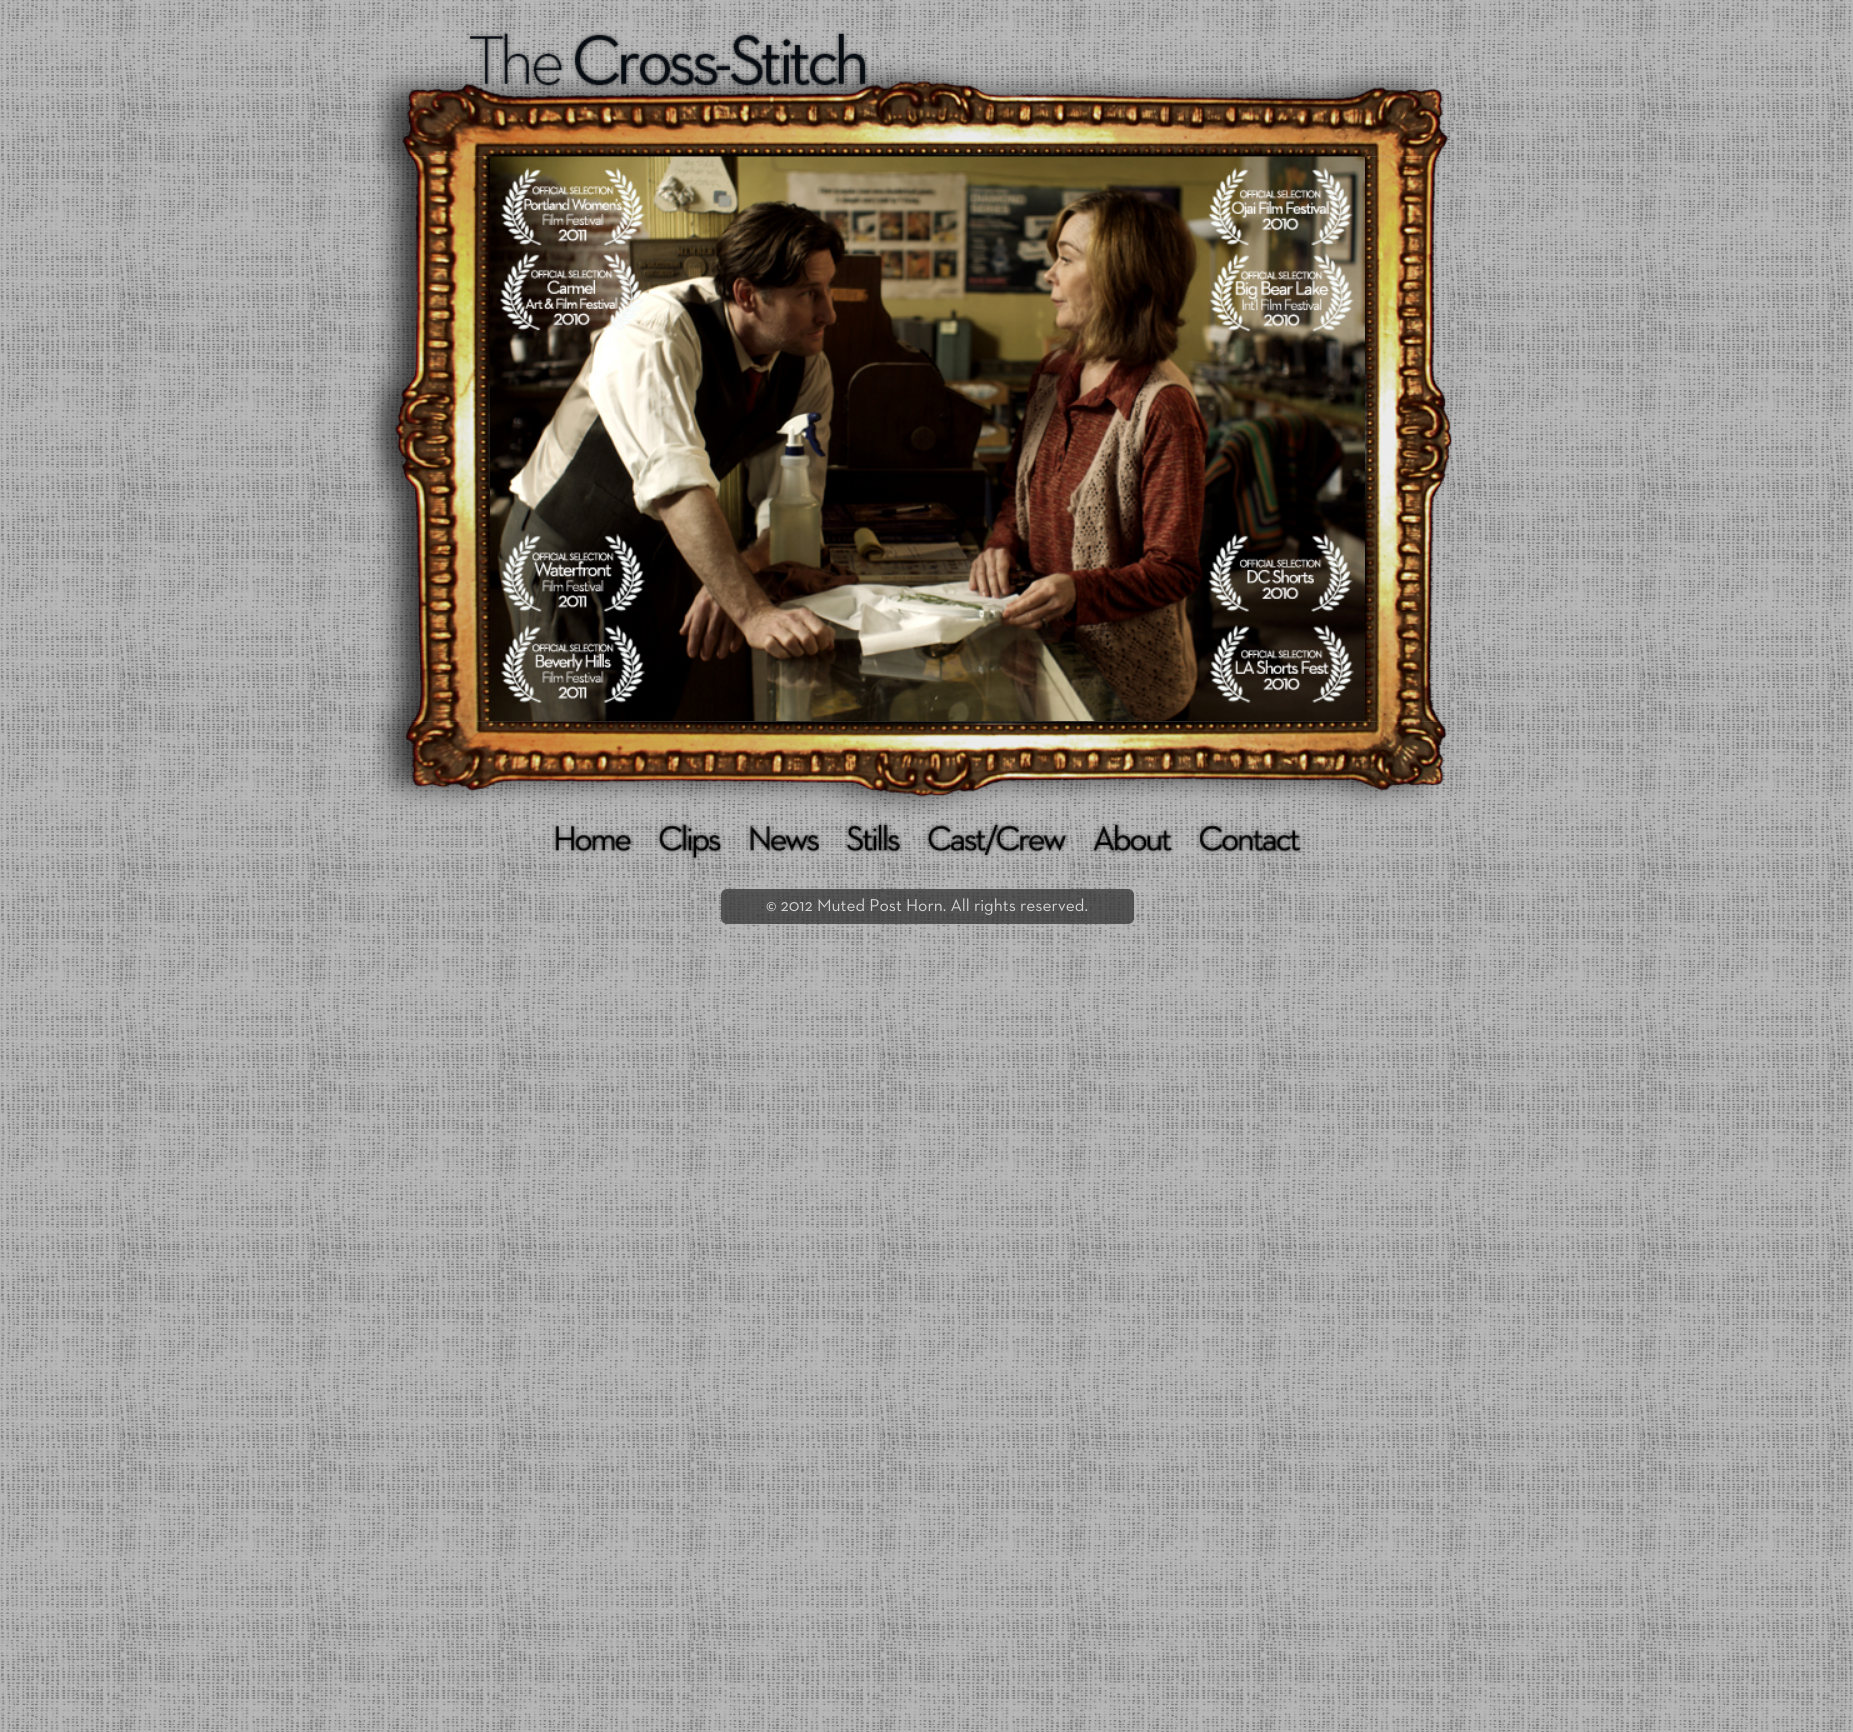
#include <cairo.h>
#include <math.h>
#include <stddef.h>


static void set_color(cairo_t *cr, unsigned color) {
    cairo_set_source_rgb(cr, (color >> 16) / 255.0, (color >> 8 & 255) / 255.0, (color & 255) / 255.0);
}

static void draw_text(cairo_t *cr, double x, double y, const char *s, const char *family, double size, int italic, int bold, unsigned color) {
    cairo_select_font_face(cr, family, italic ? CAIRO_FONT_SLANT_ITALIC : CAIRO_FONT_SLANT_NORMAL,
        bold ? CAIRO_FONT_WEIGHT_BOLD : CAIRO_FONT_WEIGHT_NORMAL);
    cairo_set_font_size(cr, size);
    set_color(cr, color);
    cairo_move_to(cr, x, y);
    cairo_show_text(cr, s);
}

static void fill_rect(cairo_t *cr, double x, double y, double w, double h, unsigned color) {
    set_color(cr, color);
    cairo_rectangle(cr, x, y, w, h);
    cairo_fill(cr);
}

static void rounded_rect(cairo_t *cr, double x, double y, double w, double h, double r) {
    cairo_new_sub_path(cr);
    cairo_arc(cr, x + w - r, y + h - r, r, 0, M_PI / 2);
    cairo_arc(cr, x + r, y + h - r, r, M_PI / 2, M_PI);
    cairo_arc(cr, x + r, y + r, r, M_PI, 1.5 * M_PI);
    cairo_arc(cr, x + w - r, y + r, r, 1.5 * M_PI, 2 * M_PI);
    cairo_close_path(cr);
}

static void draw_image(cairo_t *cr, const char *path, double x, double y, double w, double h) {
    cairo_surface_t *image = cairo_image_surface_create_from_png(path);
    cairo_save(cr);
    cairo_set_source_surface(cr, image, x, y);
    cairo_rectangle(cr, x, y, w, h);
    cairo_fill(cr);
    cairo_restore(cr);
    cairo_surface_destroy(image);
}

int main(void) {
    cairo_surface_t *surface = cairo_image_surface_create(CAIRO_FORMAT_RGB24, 1853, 1732);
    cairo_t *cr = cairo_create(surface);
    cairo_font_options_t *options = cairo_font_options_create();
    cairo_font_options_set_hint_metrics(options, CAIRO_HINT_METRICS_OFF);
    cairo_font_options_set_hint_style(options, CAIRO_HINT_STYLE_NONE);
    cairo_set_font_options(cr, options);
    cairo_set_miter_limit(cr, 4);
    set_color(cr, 0xFFFFFF);
    cairo_paint(cr);
    draw_image(cr, "assets/img1.png", 0, 0, 1853, 1732);
    draw_image(cr, "assets/img2.png", 370, 61, 1079, 96);
    draw_image(cr, "assets/img3.png", 467, 30, 402, 59);
    draw_image(cr, "assets/img7.png", 372, 721, 1075, 96);
    draw_image(cr, "assets/img4.png", 365, 156, 125, 566);
    fill_rect(cr, 490, 156, 875, 1, 0x000000);
    draw_image(cr, "assets/img5.png", 490, 156, 875, 566);
    draw_image(cr, "assets/img6.png", 1365, 156, 88, 566);
    draw_image(cr, "assets/img8.png", 552, 823, 82, 32);
    draw_image(cr, "assets/img9.png", 656, 821, 68, 40);
    draw_image(cr, "assets/img10.png", 746, 823, 77, 32);
    draw_image(cr, "assets/img11.png", 844, 821, 60, 34);
    draw_image(cr, "assets/img12.png", 925, 821, 144, 37);
    draw_image(cr, "assets/img13.png", 1091, 821, 83, 34);
    draw_image(cr, "assets/img14.png", 1196, 822, 107, 33);
    cairo_set_source_rgba(cr, 0.2, 0.2, 0.2, 0.75);
    rounded_rect(cr, 721, 889, 413, 35, 6);
    cairo_fill(cr);
    draw_text(cr, 766, 911, "© 2012 Muted Post Horn. All rights reserved.", "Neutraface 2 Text", 17.5, 0, 0, 0xD3D3D3);
    cairo_surface_write_to_png(surface, "output.png");
    cairo_font_options_destroy(options);
    cairo_destroy(cr);
    cairo_surface_destroy(surface);
    return 0;
}
